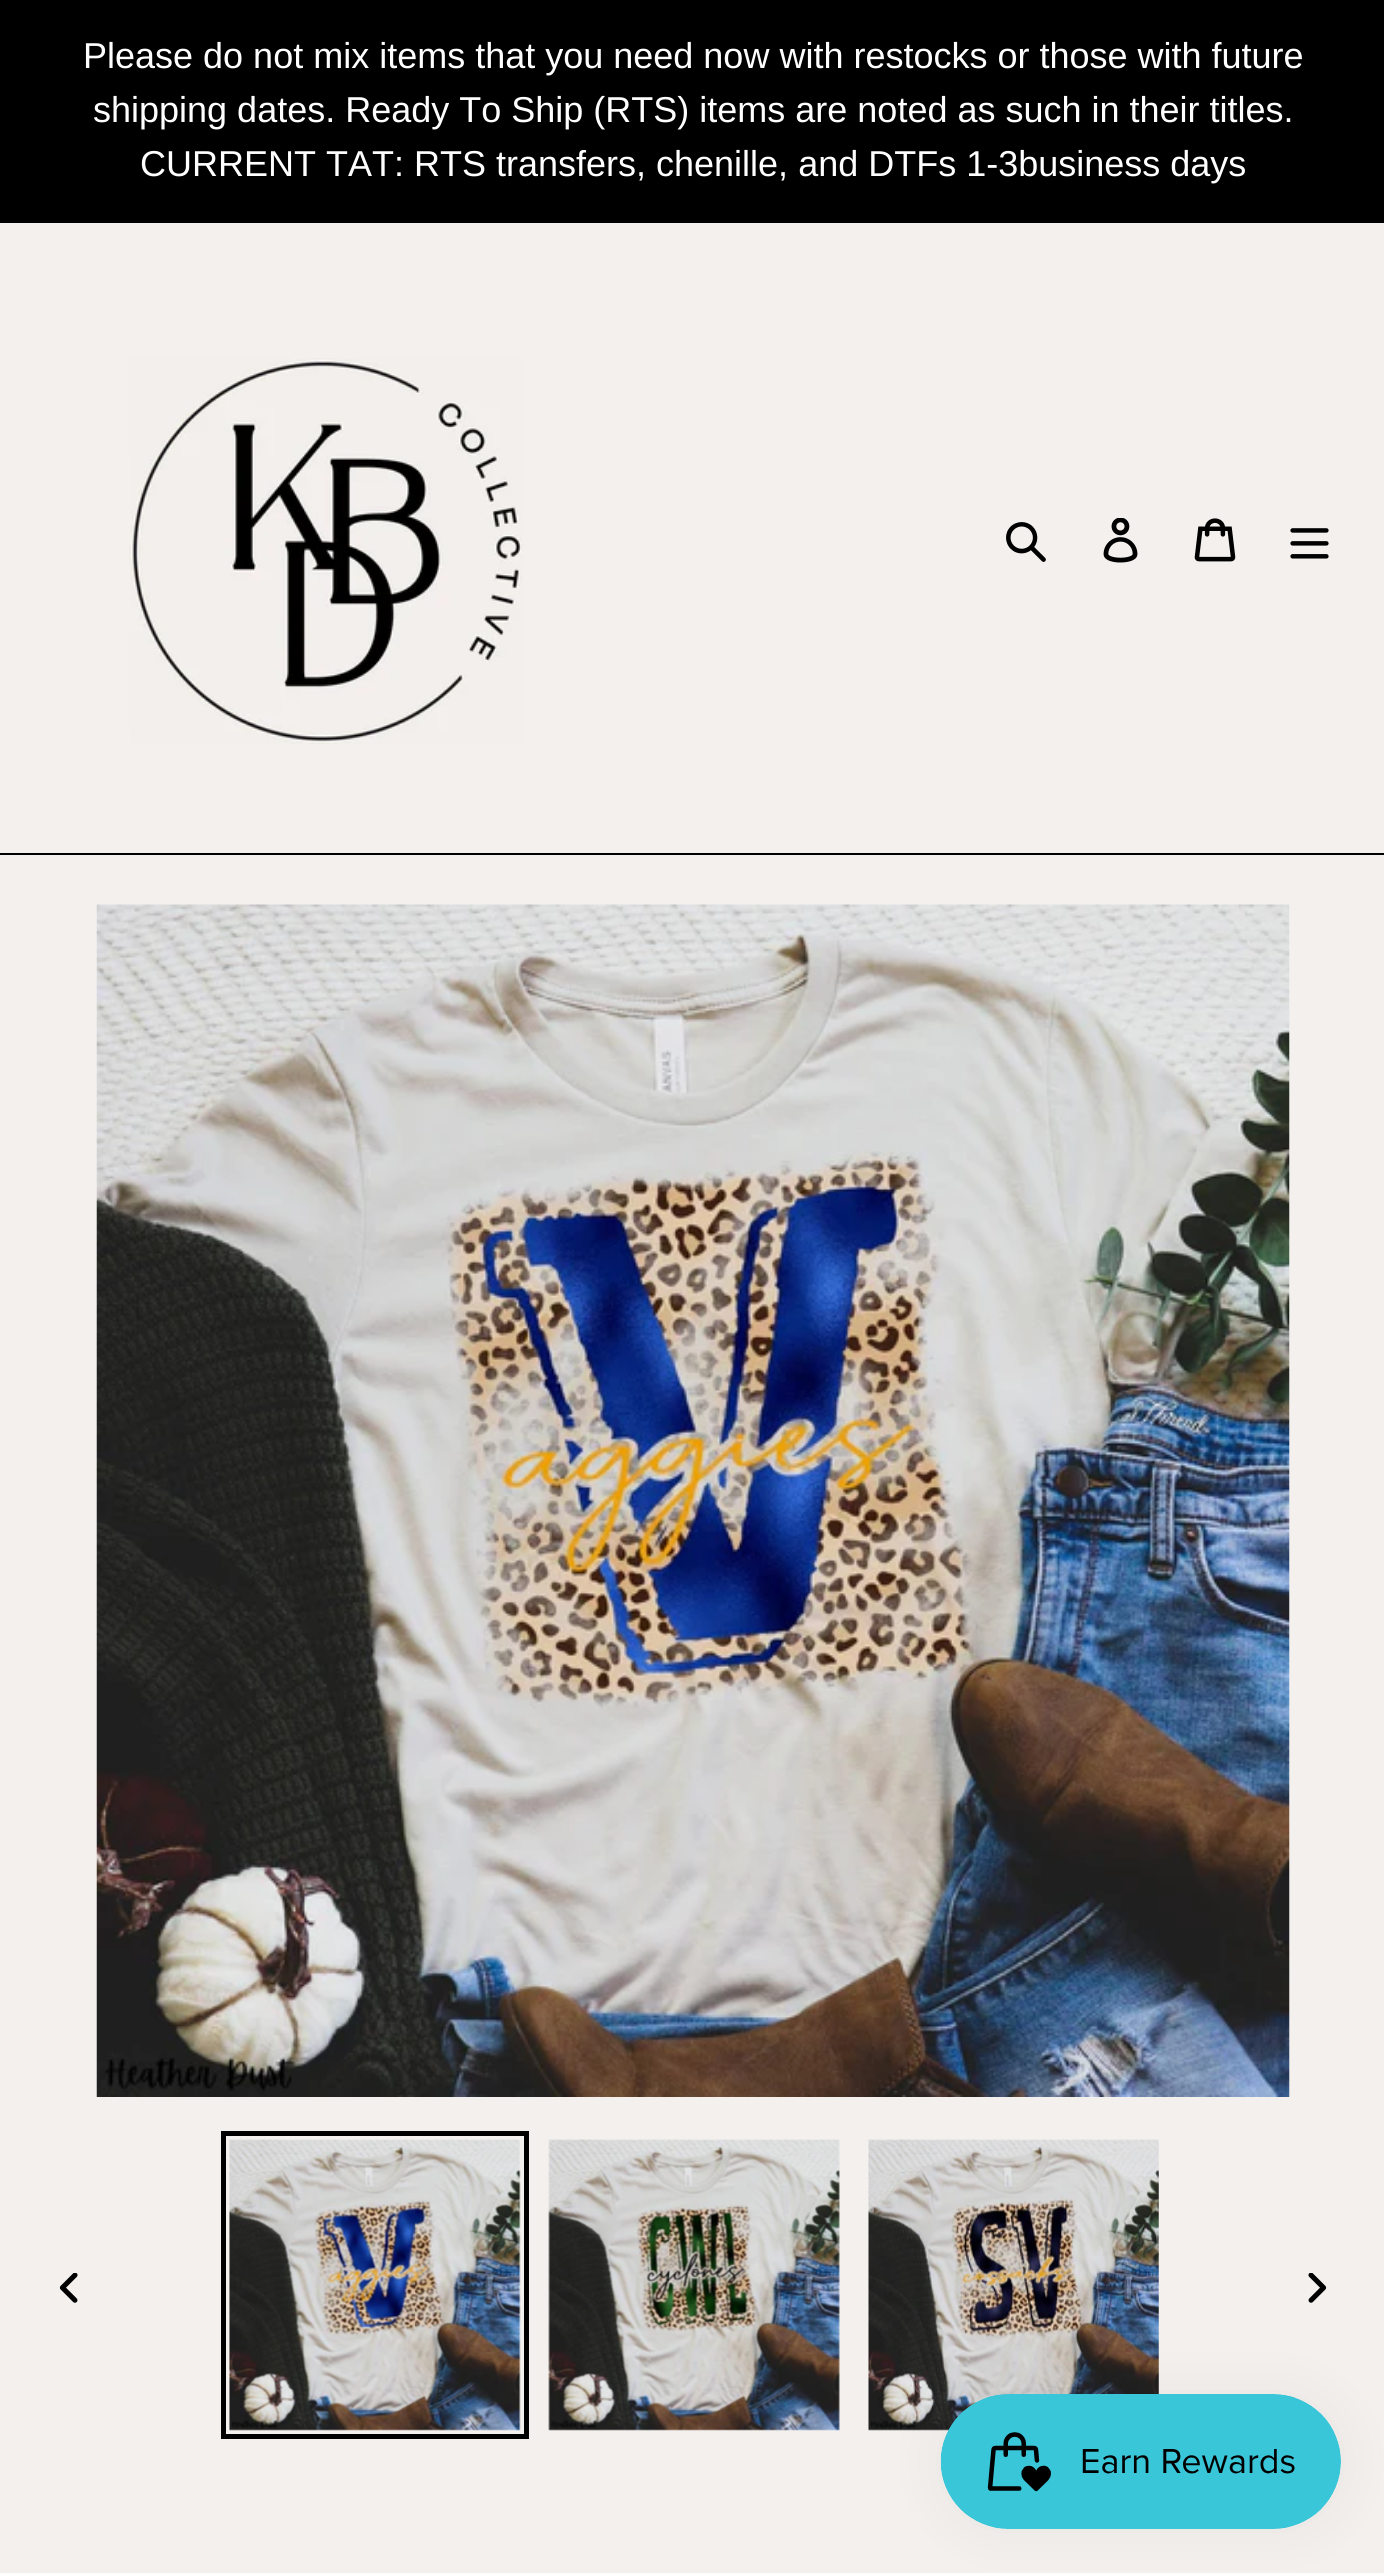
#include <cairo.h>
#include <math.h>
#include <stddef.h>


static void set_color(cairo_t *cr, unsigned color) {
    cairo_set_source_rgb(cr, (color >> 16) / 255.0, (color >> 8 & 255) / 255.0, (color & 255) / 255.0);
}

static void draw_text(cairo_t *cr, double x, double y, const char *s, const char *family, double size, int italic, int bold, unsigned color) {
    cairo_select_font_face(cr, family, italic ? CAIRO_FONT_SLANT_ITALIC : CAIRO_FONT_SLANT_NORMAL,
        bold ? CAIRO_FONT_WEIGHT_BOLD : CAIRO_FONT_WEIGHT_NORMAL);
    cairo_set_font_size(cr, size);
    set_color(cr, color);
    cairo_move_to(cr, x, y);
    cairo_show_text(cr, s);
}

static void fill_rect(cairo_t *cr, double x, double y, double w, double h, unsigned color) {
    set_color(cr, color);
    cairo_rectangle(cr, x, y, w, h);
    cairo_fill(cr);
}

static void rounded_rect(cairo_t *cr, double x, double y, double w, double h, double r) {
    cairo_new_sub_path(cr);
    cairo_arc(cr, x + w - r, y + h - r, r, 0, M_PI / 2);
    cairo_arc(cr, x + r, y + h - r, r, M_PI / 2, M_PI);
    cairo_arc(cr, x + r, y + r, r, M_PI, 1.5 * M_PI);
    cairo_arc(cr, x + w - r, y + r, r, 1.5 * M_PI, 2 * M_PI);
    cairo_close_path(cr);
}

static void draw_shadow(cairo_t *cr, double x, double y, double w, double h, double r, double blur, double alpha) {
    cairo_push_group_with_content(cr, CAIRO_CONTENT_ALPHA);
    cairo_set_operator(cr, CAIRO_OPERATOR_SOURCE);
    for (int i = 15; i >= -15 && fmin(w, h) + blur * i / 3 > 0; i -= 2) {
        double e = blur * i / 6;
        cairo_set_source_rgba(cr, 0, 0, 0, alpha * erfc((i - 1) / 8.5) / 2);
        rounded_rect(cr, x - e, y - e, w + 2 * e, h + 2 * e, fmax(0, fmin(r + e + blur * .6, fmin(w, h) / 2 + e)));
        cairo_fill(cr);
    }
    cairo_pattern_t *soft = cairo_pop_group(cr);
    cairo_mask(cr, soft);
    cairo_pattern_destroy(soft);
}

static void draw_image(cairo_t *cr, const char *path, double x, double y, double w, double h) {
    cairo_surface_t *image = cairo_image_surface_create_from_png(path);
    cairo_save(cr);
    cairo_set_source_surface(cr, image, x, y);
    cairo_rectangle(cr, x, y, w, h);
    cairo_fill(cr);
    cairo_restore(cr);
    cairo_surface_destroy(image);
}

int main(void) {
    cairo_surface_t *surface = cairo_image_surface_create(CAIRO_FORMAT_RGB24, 1384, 2573);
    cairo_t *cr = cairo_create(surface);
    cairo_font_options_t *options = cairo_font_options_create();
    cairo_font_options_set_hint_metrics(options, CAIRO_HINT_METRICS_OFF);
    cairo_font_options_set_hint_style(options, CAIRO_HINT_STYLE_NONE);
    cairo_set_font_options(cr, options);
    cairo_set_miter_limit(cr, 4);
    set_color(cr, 0xF3F0ED);
    cairo_paint(cr);
    fill_rect(cr, 0, 0, 1384, 223, 0x000000);
    draw_text(cr, 83, 68, "Please do not mix items that you need now with restocks or those with future", "Liberation Sans", 36, 0, 0, 0xFFFFFF);
    draw_text(cr, 93, 122, "shipping dates. Ready To Ship (RTS) items are noted as such in their titles.", "Liberation Sans", 36, 0, 0, 0xFFFFFF);
    draw_text(cr, 140, 176, "CURRENT TAT: RTS transfers, chenille, and DTFs 1-3business days", "Liberation Sans", 36, 0, 0, 0xFFFFFF);
    fill_rect(cr, 0, 853, 1384, 2, 0x000000);
    draw_image(cr, "assets/img1.png", 129, 358, 394, 386);
    draw_image(cr, "assets/img2.png", 1006, 522, 40, 40);
    draw_image(cr, "assets/img3.png", 1103, 518, 35, 45);
    draw_image(cr, "assets/img4.png", 1194, 518, 42, 44);
    draw_image(cr, "assets/img5.png", 1290, 528, 39, 31);
    draw_image(cr, "assets/img6.png", 96, 904, 1194, 1193);
    draw_image(cr, "assets/img7.png", 59, 2273, 19, 30);
    cairo_rectangle(cr, 223.5, 2133.5, 303, 303);
    cairo_set_line_width(cr, 5);
    cairo_stroke(cr);
    draw_image(cr, "assets/img8.png", 229, 2139, 292, 292);
    draw_image(cr, "assets/img9.png", 548, 2139, 292, 292);
    draw_image(cr, "assets/img10.png", 868, 2139, 291, 292);
    draw_image(cr, "assets/img11.png", 1308, 2273, 19, 30);
    set_color(cr, 0x000000);
    draw_shadow(cr, 941, 2394, 400, 135, 67.5, 28, 0.05);
    draw_image(cr, "assets/img12.png", 940, 2394, 401, 135);
    cairo_surface_write_to_png(surface, "output.png");
    cairo_font_options_destroy(options);
    cairo_destroy(cr);
    cairo_surface_destroy(surface);
    return 0;
}
